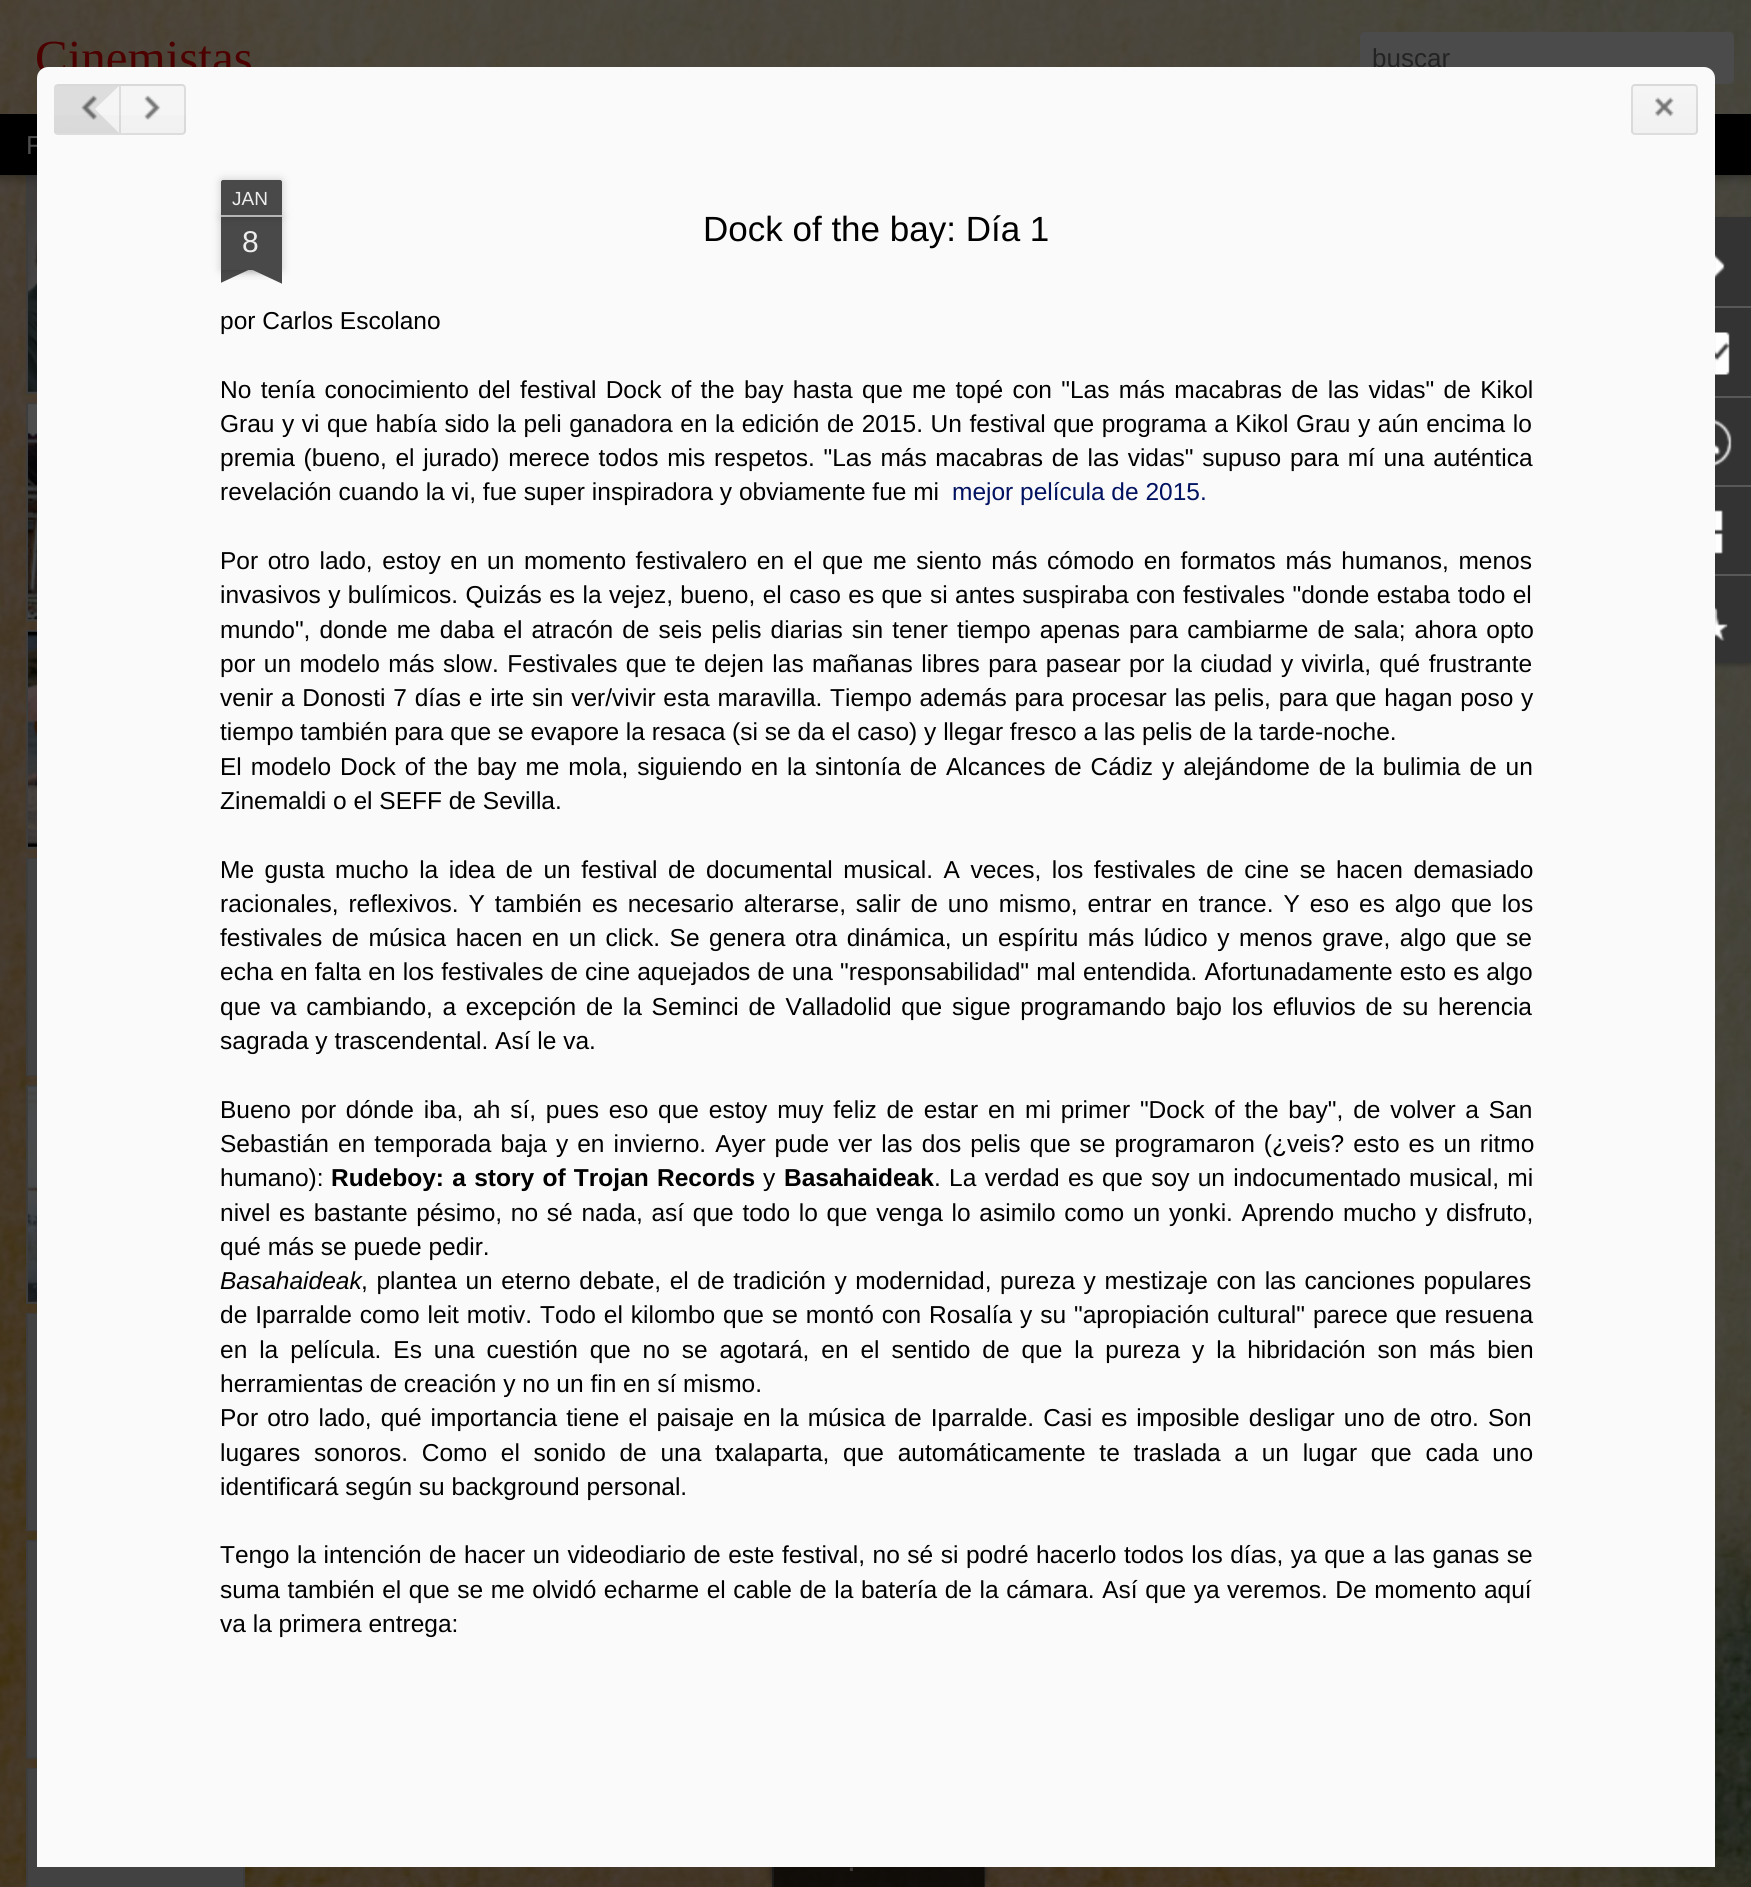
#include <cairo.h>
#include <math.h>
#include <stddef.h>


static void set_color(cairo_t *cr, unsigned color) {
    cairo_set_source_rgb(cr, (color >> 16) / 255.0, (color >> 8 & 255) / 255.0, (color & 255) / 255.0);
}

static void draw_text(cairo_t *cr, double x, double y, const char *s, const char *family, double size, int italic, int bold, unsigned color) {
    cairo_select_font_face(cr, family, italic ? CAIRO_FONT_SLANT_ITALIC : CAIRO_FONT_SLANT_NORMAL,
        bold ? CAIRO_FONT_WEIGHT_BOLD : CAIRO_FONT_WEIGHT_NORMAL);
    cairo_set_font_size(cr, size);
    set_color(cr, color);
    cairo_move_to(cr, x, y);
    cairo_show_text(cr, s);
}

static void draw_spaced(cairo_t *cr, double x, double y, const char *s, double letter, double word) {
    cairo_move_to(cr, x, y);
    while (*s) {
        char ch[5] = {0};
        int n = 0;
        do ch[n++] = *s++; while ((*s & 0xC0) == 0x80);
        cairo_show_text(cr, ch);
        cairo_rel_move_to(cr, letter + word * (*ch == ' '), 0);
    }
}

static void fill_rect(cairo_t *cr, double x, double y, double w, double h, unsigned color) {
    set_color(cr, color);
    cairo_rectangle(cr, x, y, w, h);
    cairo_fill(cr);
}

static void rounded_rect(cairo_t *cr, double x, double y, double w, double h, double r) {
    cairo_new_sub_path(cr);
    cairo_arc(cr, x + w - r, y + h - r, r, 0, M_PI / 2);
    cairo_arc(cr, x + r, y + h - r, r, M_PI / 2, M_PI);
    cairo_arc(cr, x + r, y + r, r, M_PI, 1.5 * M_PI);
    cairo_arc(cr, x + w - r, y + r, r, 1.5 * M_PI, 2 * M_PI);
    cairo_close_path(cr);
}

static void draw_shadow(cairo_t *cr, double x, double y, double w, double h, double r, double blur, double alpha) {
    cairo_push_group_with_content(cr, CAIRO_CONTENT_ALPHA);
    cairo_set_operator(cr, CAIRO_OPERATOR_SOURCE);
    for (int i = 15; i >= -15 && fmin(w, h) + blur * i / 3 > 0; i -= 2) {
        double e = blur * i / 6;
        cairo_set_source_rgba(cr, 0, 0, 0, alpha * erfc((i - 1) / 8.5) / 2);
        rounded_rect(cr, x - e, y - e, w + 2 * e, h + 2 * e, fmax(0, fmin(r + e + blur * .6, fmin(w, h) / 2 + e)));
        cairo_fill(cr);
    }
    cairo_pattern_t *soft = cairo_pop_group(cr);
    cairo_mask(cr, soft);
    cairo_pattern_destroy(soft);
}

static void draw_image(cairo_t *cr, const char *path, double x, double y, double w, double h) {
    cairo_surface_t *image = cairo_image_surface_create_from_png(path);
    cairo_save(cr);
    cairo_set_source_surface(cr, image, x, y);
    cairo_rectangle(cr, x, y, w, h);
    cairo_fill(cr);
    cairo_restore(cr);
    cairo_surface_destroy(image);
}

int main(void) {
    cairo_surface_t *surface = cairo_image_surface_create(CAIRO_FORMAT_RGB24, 1751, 1887);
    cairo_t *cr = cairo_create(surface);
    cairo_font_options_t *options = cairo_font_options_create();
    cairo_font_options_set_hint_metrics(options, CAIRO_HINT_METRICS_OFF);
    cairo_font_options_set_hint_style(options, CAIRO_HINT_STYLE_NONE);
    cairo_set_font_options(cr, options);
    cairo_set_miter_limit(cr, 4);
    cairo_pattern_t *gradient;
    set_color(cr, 0xFFFFFF);
    cairo_paint(cr);
    draw_image(cr, "assets/img1.png", 0, 175, 1751, 1712);
    cairo_rectangle(cr, 27, 176, 217, 217);
    set_color(cr, 0x3D3D3D);
    cairo_stroke(cr);
    draw_image(cr, "assets/img3.png", 28, 176, 9, 216);
    set_color(cr, 0x000000);
    draw_shadow(cr, 0, 114, 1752, 61, 0, 7, 0.5);
    fill_rect(cr, 0, 114, 1751, 61, 0x000000);
    set_color(cr, 0x000000);
    draw_shadow(cr, 0, 0, 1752, 114, 0, 4.5, 0.3);
    draw_image(cr, "assets/img2.png", 0, 0, 1751, 114);
    draw_text(cr, 35, 74, "Cinemistas", "Liberation Serif", 49, 0, 0, 0x4D0000);
    set_color(cr, 0x4B4B4B);
    rounded_rect(cr, 1360, 32, 374, 52, 5);
    cairo_fill(cr);
    draw_text(cr, 1372, 67, "buscar", "Liberation Sans", 26, 0, 0, 0x232323);
    draw_text(cr, 26, 154, "F", "Liberation Sans", 26, 0, 0, 0x4D4D4D);
    cairo_rectangle(cr, 27, 404, 217, 216);
    set_color(cr, 0x3D3D3D);
    cairo_stroke(cr);
    fill_rect(cr, 28, 404, 9, 216, 0x424242);
    draw_image(cr, "assets/img4.png", 28, 404, 9, 216);
    cairo_rectangle(cr, 27, 631, 217, 217);
    set_color(cr, 0x3D3D3D);
    cairo_stroke(cr);
    draw_image(cr, "assets/img5.png", 28, 631, 9, 216);
    cairo_rectangle(cr, 27, 859, 217, 216);
    cairo_stroke(cr);
    fill_rect(cr, 28, 859, 9, 216, 0x424242);
    cairo_rectangle(cr, 27, 1086, 217, 217);
    set_color(cr, 0x3D3D3D);
    cairo_stroke(cr);
    draw_image(cr, "assets/img6.png", 28, 1086, 9, 216);
    cairo_rectangle(cr, 27, 1314, 217, 216);
    cairo_stroke(cr);
    fill_rect(cr, 28, 1314, 9, 216, 0x424242);
    cairo_rectangle(cr, 27, 1541, 217, 217);
    set_color(cr, 0x3D3D3D);
    cairo_stroke(cr);
    fill_rect(cr, 28, 1542, 9, 215, 0x424242);
    cairo_rectangle(cr, 27, 1769, 217, 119);
    set_color(cr, 0x3D3D3D);
    cairo_stroke(cr);
    fill_rect(cr, 28, 1769, 215, 118, 0x424242);
    set_color(cr, 0x000000);
    draw_shadow(cr, 1664, 219, 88, 446, 4, 2.5, 0.3);
    fill_rect(cr, 1715, 308, 36, 266, 0x333333);
    fill_rect(cr, 1715, 217, 36, 89, 0x333333);
    draw_image(cr, "assets/img11.png", 1715, 254, 10, 25);
    fill_rect(cr, 1715, 306, 36, 2, 0x585858);
    draw_image(cr, "assets/img12.png", 1715, 332, 15, 43);
    fill_rect(cr, 1715, 396, 36, 2, 0x585858);
    draw_image(cr, "assets/img13.png", 1715, 419, 17, 47);
    fill_rect(cr, 1715, 485, 36, 2, 0x585858);
    draw_image(cr, "assets/img14.png", 1715, 510, 9, 44);
    fill_rect(cr, 1715, 576, 36, 87, 0x333333);
    fill_rect(cr, 1715, 574, 36, 2, 0x585858);
    draw_image(cr, "assets/img15.png", 1715, 606, 13, 35);
    draw_image(cr, "assets/img7.png", 1715, 88, 1, 1758);
    cairo_save(cr);
    cairo_set_fill_rule(cr, CAIRO_FILL_RULE_EVEN_ODD);
    cairo_new_path(cr);
    cairo_move_to(cr, 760, 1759);
    cairo_line_to(cr, 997, 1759);
    cairo_line_to(cr, 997, 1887);
    cairo_line_to(cr, 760, 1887);
    cairo_close_path(cr);
    cairo_move_to(cr, 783, 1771);
    cairo_line_to(cr, 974, 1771);
    cairo_curve_to(cr, 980, 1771, 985, 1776, 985, 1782);
    cairo_line_to(cr, 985, 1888);
    cairo_line_to(cr, 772, 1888);
    cairo_line_to(cr, 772, 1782);
    cairo_curve_to(cr, 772, 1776, 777, 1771, 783, 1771);
    cairo_close_path(cr);
    cairo_clip(cr);
    set_color(cr, 0x0F0F0F);
    draw_shadow(cr, 772, 1771, 213, 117, 11, 3.5, 0.75);
    cairo_restore(cr);
    cairo_set_source_rgba(cr, 0, 0, 0, 0.75);
    cairo_rectangle(cr, 772, 1867, 213, 20);
    cairo_fill(cr);
    cairo_set_source_rgba(cr, 0.122, 0.122, 0.122, 0.75);
    cairo_set_fill_rule(cr, CAIRO_FILL_RULE_EVEN_ODD);
    cairo_new_path(cr);
    cairo_move_to(cr, 782, 1771);
    cairo_line_to(cr, 975, 1771);
    cairo_curve_to(cr, 981, 1771, 985, 1776, 985, 1782);
    cairo_line_to(cr, 985, 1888);
    cairo_line_to(cr, 772, 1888);
    cairo_line_to(cr, 772, 1782);
    cairo_curve_to(cr, 772, 1776, 776, 1771, 782, 1771);
    cairo_close_path(cr);
    cairo_move_to(cr, 782, 1773);
    cairo_line_to(cr, 975, 1773);
    cairo_curve_to(cr, 980, 1773, 984, 1777, 984, 1782);
    cairo_line_to(cr, 984, 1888);
    cairo_line_to(cr, 774, 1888);
    cairo_line_to(cr, 774, 1782);
    cairo_curve_to(cr, 774, 1777, 777, 1773, 782, 1773);
    cairo_close_path(cr);
    cairo_fill(cr);
    set_color(cr, 0xFAFAFA);
    cairo_new_path(cr);
    cairo_move_to(cr, 48, 67);
    cairo_line_to(cr, 1704, 67);
    cairo_curve_to(cr, 1710, 67, 1715, 72, 1715, 78);
    cairo_line_to(cr, 1715, 1867);
    cairo_line_to(cr, 37, 1867);
    cairo_line_to(cr, 37, 78);
    cairo_curve_to(cr, 37, 72, 42, 67, 48, 67);
    cairo_close_path(cr);
    cairo_fill(cr);
    set_color(cr, 0xF5F5F5);
    cairo_new_path(cr);
    cairo_move_to(cr, 58, 84);
    cairo_line_to(cr, 121, 84);
    cairo_line_to(cr, 121, 135);
    cairo_line_to(cr, 58, 135);
    cairo_curve_to(cr, 56, 135, 54, 133, 54, 131);
    cairo_line_to(cr, 54, 88);
    cairo_curve_to(cr, 54, 86, 56, 84, 58, 84);
    cairo_close_path(cr);
    cairo_fill(cr);
    cairo_save(cr);
    cairo_set_fill_rule(cr, CAIRO_FILL_RULE_WINDING);
    cairo_new_path(cr);
    cairo_move_to(cr, 58, 84);
    cairo_line_to(cr, 121, 84);
    cairo_line_to(cr, 121, 135);
    cairo_line_to(cr, 58, 135);
    cairo_curve_to(cr, 56, 135, 54, 133, 54, 131);
    cairo_line_to(cr, 54, 88);
    cairo_curve_to(cr, 54, 86, 56, 84, 58, 84);
    cairo_close_path(cr);
    cairo_clip(cr);
    gradient = cairo_pattern_create_linear(88, 39, 88, 86);
    cairo_pattern_add_color_stop_rgba(gradient, 0, 0.961, 0.961, 0.961, 1);
    cairo_pattern_add_color_stop_rgba(gradient, 1, 0.945, 0.945, 0.945, 1);
    cairo_set_source(cr, gradient);
    cairo_pattern_destroy(gradient);
    cairo_rectangle(cr, 54, 84, 67, 2);
    cairo_fill(cr);
    cairo_restore(cr);
    gradient = cairo_pattern_create_linear(88, 86, 88, 133);
    cairo_pattern_add_color_stop_rgba(gradient, 0, 0.961, 0.961, 0.961, 1);
    cairo_pattern_add_color_stop_rgba(gradient, 1, 0.945, 0.945, 0.945, 1);
    cairo_set_source(cr, gradient);
    cairo_pattern_destroy(gradient);
    cairo_rectangle(cr, 54, 115, 65, 18);
    cairo_fill(cr);
    cairo_set_source_rgba(cr, 0, 0, 0, 0.1);
    cairo_set_fill_rule(cr, CAIRO_FILL_RULE_WINDING);
    cairo_new_path(cr);
    cairo_move_to(cr, 58, 84);
    cairo_line_to(cr, 121, 84);
    cairo_line_to(cr, 95, 109);
    cairo_line_to(cr, 80, 109);
    cairo_line_to(cr, 55, 85);
    cairo_close_path(cr);
    cairo_fill(cr);
    cairo_new_path(cr);
    cairo_move_to(cr, 121, 135);
    cairo_line_to(cr, 95, 109);
    cairo_line_to(cr, 80, 109);
    cairo_line_to(cr, 55, 134);
    cairo_line_to(cr, 57, 135);
    cairo_close_path(cr);
    cairo_fill(cr);
    cairo_new_path(cr);
    cairo_move_to(cr, 55, 134);
    cairo_line_to(cr, 80, 109);
    cairo_line_to(cr, 55, 85);
    cairo_line_to(cr, 54, 87);
    cairo_line_to(cr, 54, 132);
    cairo_close_path(cr);
    cairo_fill(cr);
    draw_image(cr, "assets/img8.png", 81, 95, 17, 25);
    set_color(cr, 0xF5F5F5);
    cairo_new_path(cr);
    cairo_move_to(cr, 119, 84);
    cairo_line_to(cr, 182, 84);
    cairo_curve_to(cr, 184, 84, 186, 86, 186, 88);
    cairo_line_to(cr, 186, 131);
    cairo_curve_to(cr, 186, 133, 184, 135, 182, 135);
    cairo_line_to(cr, 119, 135);
    cairo_close_path(cr);
    cairo_fill(cr);
    cairo_save(cr);
    cairo_new_path(cr);
    cairo_move_to(cr, 119, 84);
    cairo_line_to(cr, 182, 84);
    cairo_curve_to(cr, 184, 84, 186, 86, 186, 88);
    cairo_line_to(cr, 186, 131);
    cairo_curve_to(cr, 186, 133, 184, 135, 182, 135);
    cairo_line_to(cr, 119, 135);
    cairo_close_path(cr);
    cairo_clip(cr);
    gradient = cairo_pattern_create_linear(152, 39, 152, 86);
    cairo_pattern_add_color_stop_rgba(gradient, 0, 0.961, 0.961, 0.961, 1);
    cairo_pattern_add_color_stop_rgba(gradient, 1, 0.945, 0.945, 0.945, 1);
    cairo_set_source(cr, gradient);
    cairo_pattern_destroy(gradient);
    cairo_rectangle(cr, 119, 84, 67, 2);
    cairo_fill(cr);
    cairo_restore(cr);
    gradient = cairo_pattern_create_linear(152, 86, 152, 133);
    cairo_pattern_add_color_stop_rgba(gradient, 0, 0.961, 0.961, 0.961, 1);
    cairo_pattern_add_color_stop_rgba(gradient, 1, 0.945, 0.945, 0.945, 1);
    cairo_set_source(cr, gradient);
    cairo_pattern_destroy(gradient);
    cairo_rectangle(cr, 119, 115, 67, 18);
    cairo_fill(cr);
    cairo_new_path(cr);
    cairo_move_to(cr, 120, 85);
    cairo_line_to(cr, 182, 85);
    cairo_curve_to(cr, 183.5, 85, 185, 86.5, 185, 88);
    cairo_line_to(cr, 185, 131);
    cairo_curve_to(cr, 185, 132.5, 183.5, 134, 182, 134);
    cairo_line_to(cr, 120, 134);
    cairo_close_path(cr);
    cairo_set_source_rgba(cr, 0, 0, 0, 0.1);
    cairo_stroke(cr);
    draw_image(cr, "assets/img9.png", 144, 95, 17, 25);
    set_color(cr, 0xF5F5F5);
    rounded_rect(cr, 1631, 84, 67, 51, 4);
    cairo_fill(cr);
    cairo_save(cr);
    rounded_rect(cr, 1631, 84, 67, 51, 4);
    cairo_clip(cr);
    gradient = cairo_pattern_create_linear(1664, 39, 1664, 86);
    cairo_pattern_add_color_stop_rgba(gradient, 0, 0.961, 0.961, 0.961, 1);
    cairo_pattern_add_color_stop_rgba(gradient, 1, 0.945, 0.945, 0.945, 1);
    cairo_set_source(cr, gradient);
    cairo_pattern_destroy(gradient);
    cairo_rectangle(cr, 1631, 84, 67, 2);
    cairo_fill(cr);
    gradient = cairo_pattern_create_linear(1664, 86, 1664, 133);
    cairo_pattern_add_color_stop_rgba(gradient, 0, 0.961, 0.961, 0.961, 1);
    cairo_pattern_add_color_stop_rgba(gradient, 1, 0.945, 0.945, 0.945, 1);
    cairo_set_source(cr, gradient);
    cairo_pattern_destroy(gradient);
    cairo_rectangle(cr, 1631, 86, 67, 47);
    cairo_fill(cr);
    cairo_restore(cr);
    rounded_rect(cr, 1632, 85, 65, 49, 3);
    cairo_set_source_rgba(cr, 0, 0, 0, 0.1);
    cairo_stroke(cr);
    draw_image(cr, "assets/img10.png", 1655, 97, 19, 20);
    set_color(cr, 0x000000);
    draw_shadow(cr, 221, 217, 61, 53, 0, 4.5, 0.2);
    fill_rect(cr, 221, 217, 61, 53, 0x494949);
    set_color(cr, 0x000000);
    draw_shadow(cr, 221, 180, 61, 37, 2, 4.5, 0.2);
    set_color(cr, 0x494949);
    cairo_new_path(cr);
    cairo_move_to(cr, 223, 180);
    cairo_line_to(cr, 280, 180);
    cairo_curve_to(cr, 281, 180, 282, 181, 282, 182);
    cairo_line_to(cr, 282, 217);
    cairo_line_to(cr, 221, 217);
    cairo_line_to(cr, 221, 182);
    cairo_curve_to(cr, 221, 181, 222, 180, 223, 180);
    cairo_close_path(cr);
    cairo_fill(cr);
    fill_rect(cr, 221, 215, 61, 2, 0xB6B6B6);
    draw_text(cr, 232, 205, "JAN", "Liberation Sans", 19, 0, 0, 0xEEEEEE);
    draw_text(cr, 242, 252, "8", "Liberation Sans", 30, 0, 0, 0xEEEEEE);
    cairo_save(cr);
    cairo_rectangle(cr, 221, 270, 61, 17);
    cairo_clip(cr);
    set_color(cr, 0x000000);
    draw_shadow(cr, 205, 252, 87, 18, 0, 4.5, 0.2);
    cairo_restore(cr);
    cairo_save(cr);
    cairo_rectangle(cr, 221, 270, 61, 17);
    cairo_clip(cr);
    set_color(cr, 0x494949);
    cairo_new_path(cr);
    cairo_move_to(cr, 204, 271);
    cairo_line_to(cr, 284, 234);
    cairo_line_to(cr, 291, 250);
    cairo_line_to(cr, 212, 287);
    cairo_close_path(cr);
    cairo_fill(cr);
    cairo_restore(cr);
    cairo_save(cr);
    cairo_rectangle(cr, 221, 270, 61, 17);
    cairo_clip(cr);
    set_color(cr, 0x000000);
    draw_shadow(cr, 210, 252, 88, 18, 0, 4.5, 0.2);
    cairo_restore(cr);
    cairo_save(cr);
    cairo_rectangle(cr, 221, 270, 61, 17);
    cairo_clip(cr);
    set_color(cr, 0x494949);
    cairo_new_path(cr);
    cairo_move_to(cr, 217, 234);
    cairo_line_to(cr, 296, 271);
    cairo_line_to(cr, 289, 287);
    cairo_line_to(cr, 210, 250);
    cairo_close_path(cr);
    cairo_fill(cr);
    cairo_restore(cr);
    draw_text(cr, 703, 241, "Dock of the bay: Día 1", "Liberation Sans", 35, 0, 0, 0x000000);
    draw_text(cr, 220, 329, "por Carlos Escolano", "Liberation Sans", 24.5, 0, 0, 0x000000);
    draw_spaced(cr, 220, 398, "No tenía conocimiento del festival Dock of the bay hasta que me topé con \"Las más macabras de las vidas\" de Kikol", 0, 2.5);
    draw_spaced(cr, 220, 432, "Grau y vi que había sido la peli ganadora en la edición de 2015. Un festival que programa a Kikol Grau y aún encima lo", 0, 0.75);
    draw_spaced(cr, 220, 466, "premia (bueno, el jurado) merece todos mis respetos. \"Las más macabras de las vidas\" supuso para mí una auténtica", 0, 1.9);
    draw_text(cr, 220, 500, "revelación cuando la vi, fue super inspiradora y obviamente fue mi", "Liberation Sans", 24.5, 0, 0, 0x000000);
    draw_text(cr, 952, 500, "mejor película de 2015.", "Liberation Sans", 24.5, 0, 0, 0x001160);
    set_color(cr, 0x000000);
    draw_spaced(cr, 220, 569, "Por otro lado, estoy en un momento festivalero en el que me siento más cómodo en formatos más humanos, menos", 0, 2.75);
    draw_spaced(cr, 220, 603, "invasivos y bulímicos. Quizás es la vejez, bueno, el caso es que si antes suspiraba con festivales \"donde estaba todo el", 0, 0.6);
    draw_spaced(cr, 220, 638, "mundo\", donde me daba el atracón de seis pelis diarias sin tener tiempo apenas para cambiarme de sala; ahora opto", 0, 2.25);
    draw_spaced(cr, 220, 672, "por un modelo más slow. Festivales que te dejen las mañanas libres para pasear por la ciudad y vivirla, qué frustrante", 0, 1.6);
    draw_spaced(cr, 220, 706, "venir a Donosti 7 días e irte sin ver/vivir esta maravilla. Tiempo además para procesar las pelis, para que hagan poso y", 0, 1);
    draw_text(cr, 220, 740, "tiempo también para que se evapore la resaca (si se da el caso) y llegar fresco a las pelis de la tarde-noche.", "Liberation Sans", 24.5, 0, 0, 0x000000);
    draw_spaced(cr, 220, 775, "El modelo Dock of the bay me mola, siguiendo en la sintonía de Alcances de Cádiz y alejándome de la bulimia de un", 0, 2.1);
    draw_text(cr, 220, 809, "Zinemaldi o el SEFF de Sevilla.", "Liberation Sans", 24.5, 0, 0, 0x000000);
    draw_spaced(cr, 220, 878, "Me gusta mucho la idea de un festival de documental musical. A veces, los festivales de cine se hacen demasiado", 0, 3.75);
    draw_spaced(cr, 220, 912, "racionales, reflexivos. Y también es necesario alterarse, salir de uno mismo, entrar en trance. Y eso es algo que los", 0, 3.1);
    draw_spaced(cr, 220, 946, "festivales de música hacen en un click. Se genera otra dinámica, un espíritu más lúdico y menos grave, algo que se", 0, 2.75);
    draw_spaced(cr, 220, 980, "echa en falta en los festivales de cine aquejados de una \"responsabilidad\" mal entendida. Afortunadamente esto es algo", 0, 0.4);
    draw_spaced(cr, 220, 1015, "que va cambiando, a excepción de la Seminci de Valladolid que sigue programando bajo los efluvios de su herencia", 0, 2.9);
    draw_text(cr, 220, 1049, "sagrada y trascendental. Así le va.", "Liberation Sans", 24.5, 0, 0, 0x000000);
    draw_spaced(cr, 220, 1118, "Bueno por dónde iba, ah sí, pues eso que estoy muy feliz de estar en mi primer \"Dock of the bay\", de volver a San", 0, 3);
    draw_spaced(cr, 220, 1152, "Sebastián en temporada baja y en invierno. Ayer pude ver las dos pelis que se programaron (¿veis? esto es un ritmo", 0, 2.25);
    draw_text(cr, 220, 1186, "humano):", "Liberation Sans", 24.5, 0, 0, 0x000000);
    cairo_select_font_face(cr, "Liberation Sans", CAIRO_FONT_SLANT_NORMAL, CAIRO_FONT_WEIGHT_BOLD);
    draw_spaced(cr, 331, 1186, "Rudeboy: a story of Trojan Records", 0, 1.5);
    draw_text(cr, 763, 1186, "y", "Liberation Sans", 24.5, 0, 0, 0x000000);
    draw_text(cr, 784, 1186, "Basahaideak", "Liberation Sans", 24.5, 0, 1, 0x000000);
    cairo_select_font_face(cr, "Liberation Sans", CAIRO_FONT_SLANT_NORMAL, CAIRO_FONT_WEIGHT_NORMAL);
    draw_spaced(cr, 934, 1186, ". La verdad es que soy un indocumentado musical, mi", 0, 1.5);
    draw_spaced(cr, 220, 1221, "nivel es bastante pésimo, no sé nada, así que todo lo que venga lo asimilo como un yonki. Aprendo mucho y disfruto,", 0, 1.9);
    draw_text(cr, 220, 1255, "qué más se puede pedir.", "Liberation Sans", 24.5, 0, 0, 0x000000);
    draw_text(cr, 220, 1289, "Basahaideak", "Liberation Sans", 24.5, 1, 0, 0x000000);
    cairo_select_font_face(cr, "Liberation Sans", CAIRO_FONT_SLANT_NORMAL, CAIRO_FONT_WEIGHT_NORMAL);
    draw_spaced(cr, 361, 1289, ", plantea un eterno debate, el de tradición y modernidad, pureza y mestizaje con las canciones populares", 0, 1.8);
    draw_spaced(cr, 220, 1323, "de Iparralde como leit motiv. Todo el kilombo que se montó con Rosalía y su \"apropiación cultural\" parece que resuena", 0, 1.1);
    draw_spaced(cr, 220, 1358, "en la película. Es una cuestión que no se agotará, en el sentido de que la pureza y la hibridación son más bien", 0, 5.1);
    draw_text(cr, 220, 1392, "herramientas de creación y no un fin en sí mismo.", "Liberation Sans", 24.5, 0, 0, 0x000000);
    draw_spaced(cr, 220, 1426, "Por otro lado, qué importancia tiene el paisaje en la música de Iparralde. Casi es imposible desligar uno de otro. Son", 0, 2.25);
    draw_spaced(cr, 220, 1461, "lugares sonoros. Como el sonido de una txalaparta, que automáticamente te traslada a un lugar que cada uno", 0, 6.9);
    draw_text(cr, 220, 1495, "identificará según su background personal.", "Liberation Sans", 24.5, 0, 0, 0x000000);
    draw_spaced(cr, 220, 1563, "Tengo la intención de hacer un videodiario de este festival, no sé si podré hacerlo todos los días, ya que a las ganas se", 0, 0.7);
    draw_spaced(cr, 220, 1598, "suma también el que se me olvidó echarme el cable de la batería de la cámara. Así que ya veremos. De momento aquí", 0, 0.75);
    draw_text(cr, 220, 1632, "va la primera entrega:", "Liberation Sans", 24.5, 0, 0, 0x000000);
    draw_text(cr, 847, 1871, ".", "Liberation Sans", 32, 0, 0, 0x3E3D3C);
    cairo_surface_write_to_png(surface, "output.png");
    cairo_font_options_destroy(options);
    cairo_destroy(cr);
    cairo_surface_destroy(surface);
    return 0;
}
